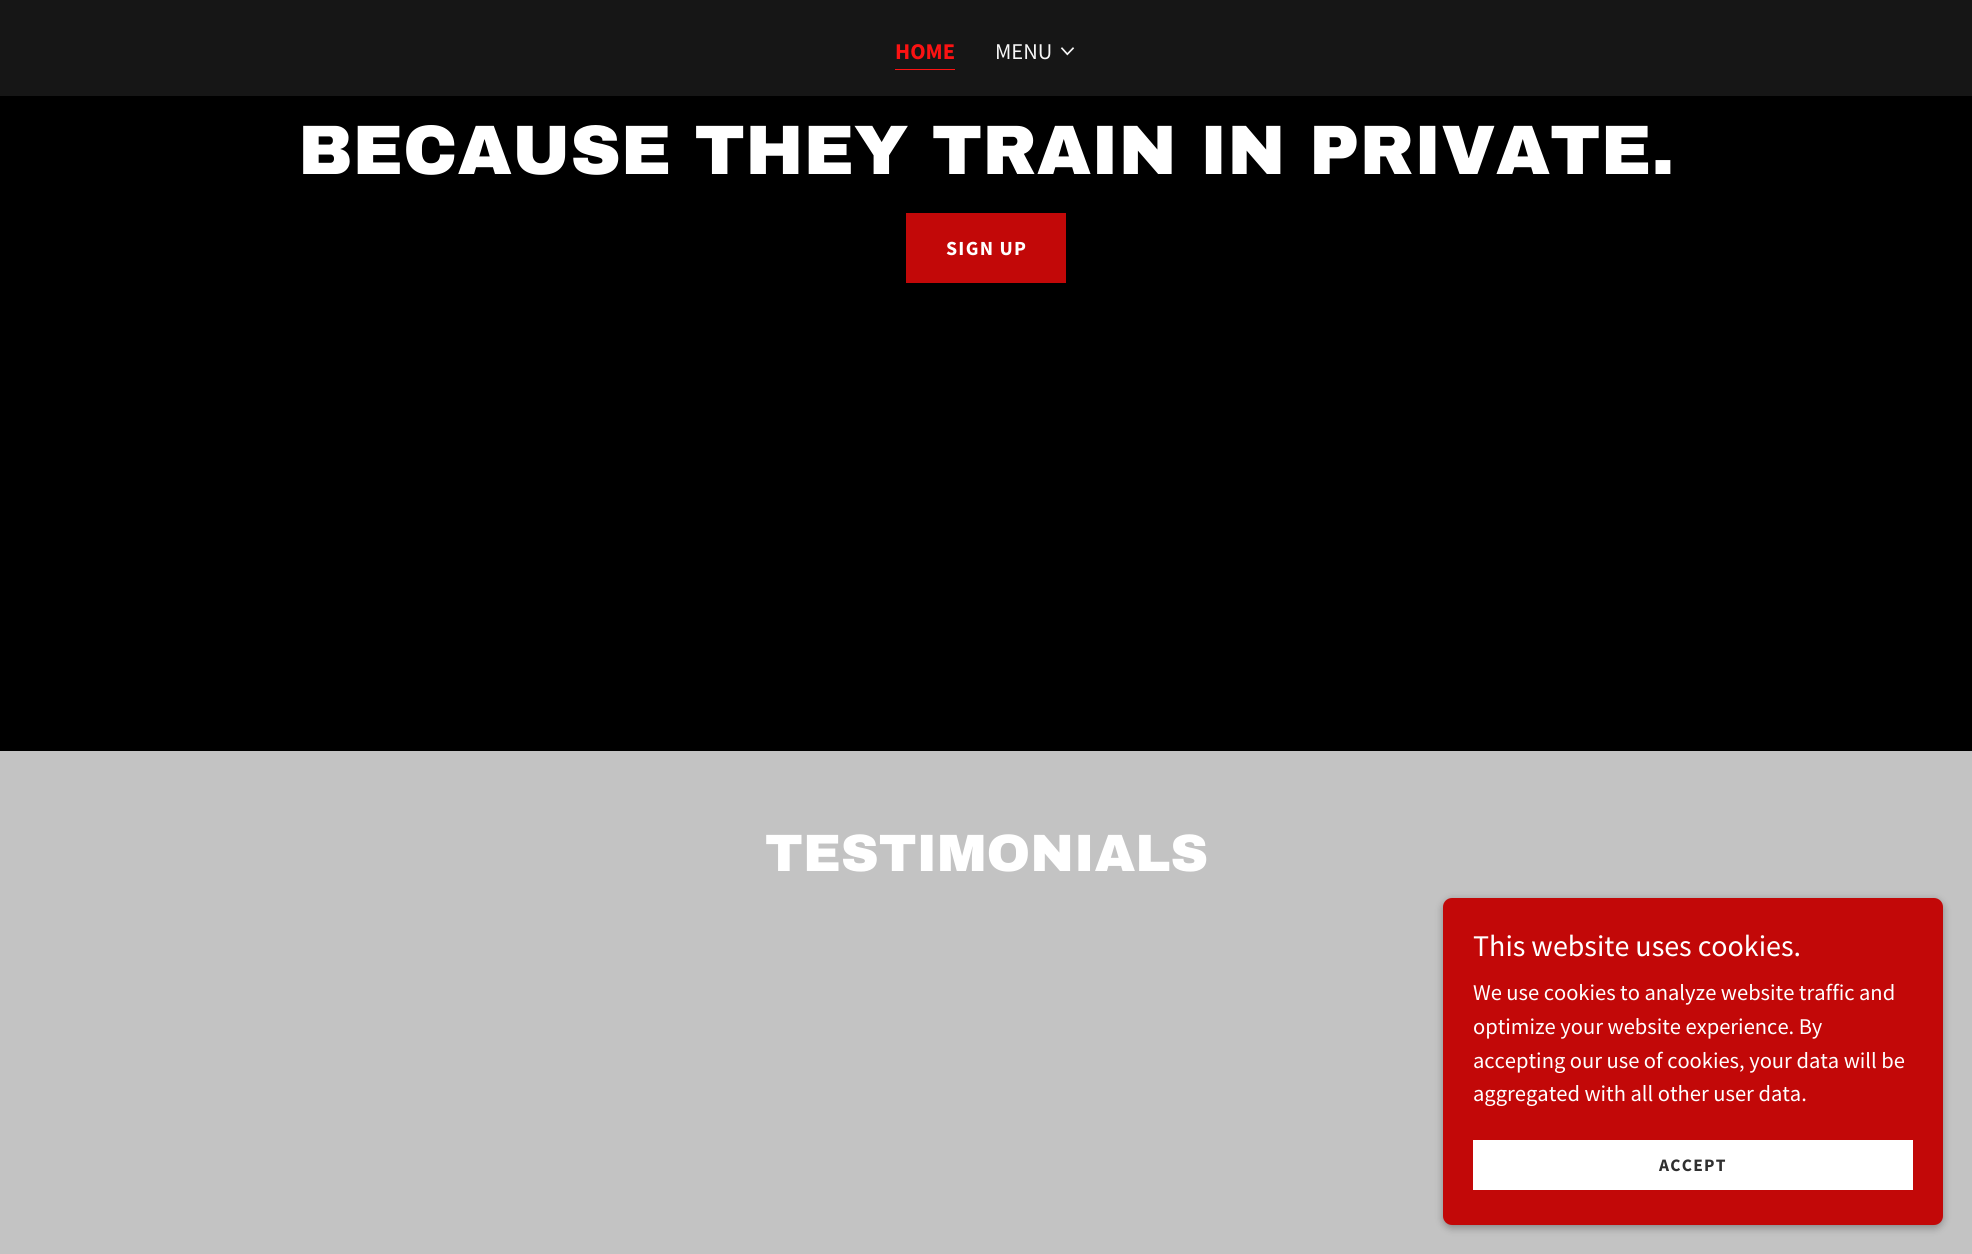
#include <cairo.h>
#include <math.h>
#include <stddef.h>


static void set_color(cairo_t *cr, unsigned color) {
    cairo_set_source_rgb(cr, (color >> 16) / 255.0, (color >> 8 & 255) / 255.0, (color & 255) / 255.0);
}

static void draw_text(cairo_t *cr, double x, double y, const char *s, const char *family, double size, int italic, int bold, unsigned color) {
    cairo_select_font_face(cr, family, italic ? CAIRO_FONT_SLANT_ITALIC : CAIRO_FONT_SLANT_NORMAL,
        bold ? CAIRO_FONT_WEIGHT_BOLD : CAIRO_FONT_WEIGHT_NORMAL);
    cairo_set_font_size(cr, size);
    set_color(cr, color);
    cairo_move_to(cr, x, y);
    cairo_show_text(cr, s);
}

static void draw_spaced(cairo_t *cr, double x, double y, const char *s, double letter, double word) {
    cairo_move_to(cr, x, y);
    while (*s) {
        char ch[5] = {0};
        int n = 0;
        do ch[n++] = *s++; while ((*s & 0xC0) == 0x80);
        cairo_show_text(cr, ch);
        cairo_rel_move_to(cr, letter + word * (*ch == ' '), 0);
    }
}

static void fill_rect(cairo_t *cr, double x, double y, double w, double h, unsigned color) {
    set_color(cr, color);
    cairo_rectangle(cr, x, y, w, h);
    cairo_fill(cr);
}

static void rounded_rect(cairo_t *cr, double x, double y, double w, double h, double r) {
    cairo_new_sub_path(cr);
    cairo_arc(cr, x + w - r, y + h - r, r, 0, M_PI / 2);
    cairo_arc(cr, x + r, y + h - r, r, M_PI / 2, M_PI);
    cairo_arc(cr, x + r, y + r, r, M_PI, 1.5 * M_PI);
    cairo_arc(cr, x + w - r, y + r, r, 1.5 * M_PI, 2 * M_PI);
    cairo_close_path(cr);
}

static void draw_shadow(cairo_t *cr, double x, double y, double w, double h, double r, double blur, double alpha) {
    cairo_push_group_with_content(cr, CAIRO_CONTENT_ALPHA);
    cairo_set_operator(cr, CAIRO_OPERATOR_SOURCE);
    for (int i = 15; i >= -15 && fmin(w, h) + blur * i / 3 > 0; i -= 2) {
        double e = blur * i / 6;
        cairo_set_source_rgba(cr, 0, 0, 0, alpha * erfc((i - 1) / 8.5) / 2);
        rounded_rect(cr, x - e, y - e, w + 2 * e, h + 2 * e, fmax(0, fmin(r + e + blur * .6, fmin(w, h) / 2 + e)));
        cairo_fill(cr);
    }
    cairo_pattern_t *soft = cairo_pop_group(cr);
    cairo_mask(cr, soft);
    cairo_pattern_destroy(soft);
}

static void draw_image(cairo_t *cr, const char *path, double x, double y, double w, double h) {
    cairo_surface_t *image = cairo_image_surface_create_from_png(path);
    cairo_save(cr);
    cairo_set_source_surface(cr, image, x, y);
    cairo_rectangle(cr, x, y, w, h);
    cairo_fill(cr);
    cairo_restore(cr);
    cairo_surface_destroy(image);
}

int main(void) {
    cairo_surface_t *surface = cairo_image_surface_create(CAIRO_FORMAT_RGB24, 1972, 1254);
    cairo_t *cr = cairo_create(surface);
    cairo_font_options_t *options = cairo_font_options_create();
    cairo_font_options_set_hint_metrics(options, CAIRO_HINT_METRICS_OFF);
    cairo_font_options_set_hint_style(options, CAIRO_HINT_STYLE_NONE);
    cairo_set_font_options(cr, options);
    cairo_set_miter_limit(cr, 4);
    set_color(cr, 0xC3C3C3);
    cairo_paint(cr);
    fill_rect(cr, 0, 0, 1972, 96, 0x161616);
    fill_rect(cr, 895, 69, 60, 1, 0xFC1212);
    draw_text(cr, 895, 59, "HOME", "Source Sans Pro", 22.5, 0, 1, 0xFC1212);
    draw_text(cr, 995, 59, "MENU", "Source Sans Pro", 22.5, 0, 0, 0xF7F7F7);
    draw_image(cr, "assets/img1.png", 1060, 47, 15, 9);
    fill_rect(cr, 0, 96, 1972, 655, 0x000000);
    draw_text(cr, 298, 174, "BECAUSE THEY TRAIN IN PRIVATE.", "Archivo Black Black", 70, 0, 0, 0xFFFFFF);
    fill_rect(cr, 906, 213, 160, 70, 0xC20808);
    cairo_select_font_face(cr, "Source Sans Pro", CAIRO_FONT_SLANT_NORMAL, CAIRO_FONT_WEIGHT_BOLD);
    cairo_set_font_size(cr, 20);
    set_color(cr, 0xFFFFFF);
    draw_spaced(cr, 946, 255, "SIGN UP", 1.25, 0);
    draw_text(cr, 765, 871, "TESTIMONIALS", "Archivo Black Black", 52.5, 0, 0, 0xFFFFFF);
    set_color(cr, 0x000000);
    draw_shadow(cr, 1443, 900, 500, 328, 9, 4, 0.3);
    set_color(cr, 0xC20808);
    rounded_rect(cr, 1443, 898, 500, 327, 9);
    cairo_fill(cr);
    draw_text(cr, 1473, 956, "This website uses cookies.", "Source Sans Pro", 30, 0, 0, 0xFFFFFF);
    draw_text(cr, 1473, 1000, "We use cookies to analyze website traffic and", "Source Sans Pro", 22.5, 0, 0, 0xFFFFFF);
    draw_text(cr, 1473, 1034, "optimize your website experience. By", "Source Sans Pro", 22.5, 0, 0, 0xFFFFFF);
    draw_text(cr, 1473, 1068, "accepting our use of cookies, your data will be", "Source Sans Pro", 22.5, 0, 0, 0xFFFFFF);
    draw_text(cr, 1473, 1101, "aggregated with all other user data.", "Source Sans Pro", 22.5, 0, 0, 0xFFFFFF);
    fill_rect(cr, 1473, 1140, 440, 50, 0xFFFFFF);
    cairo_select_font_face(cr, "Source Sans Pro", CAIRO_FONT_SLANT_NORMAL, CAIRO_FONT_WEIGHT_BOLD);
    cairo_set_font_size(cr, 17.5);
    set_color(cr, 0x303030);
    draw_spaced(cr, 1659, 1171, "ACCEPT", 1.25, 0);
    cairo_surface_write_to_png(surface, "output.png");
    cairo_font_options_destroy(options);
    cairo_destroy(cr);
    cairo_surface_destroy(surface);
    return 0;
}
